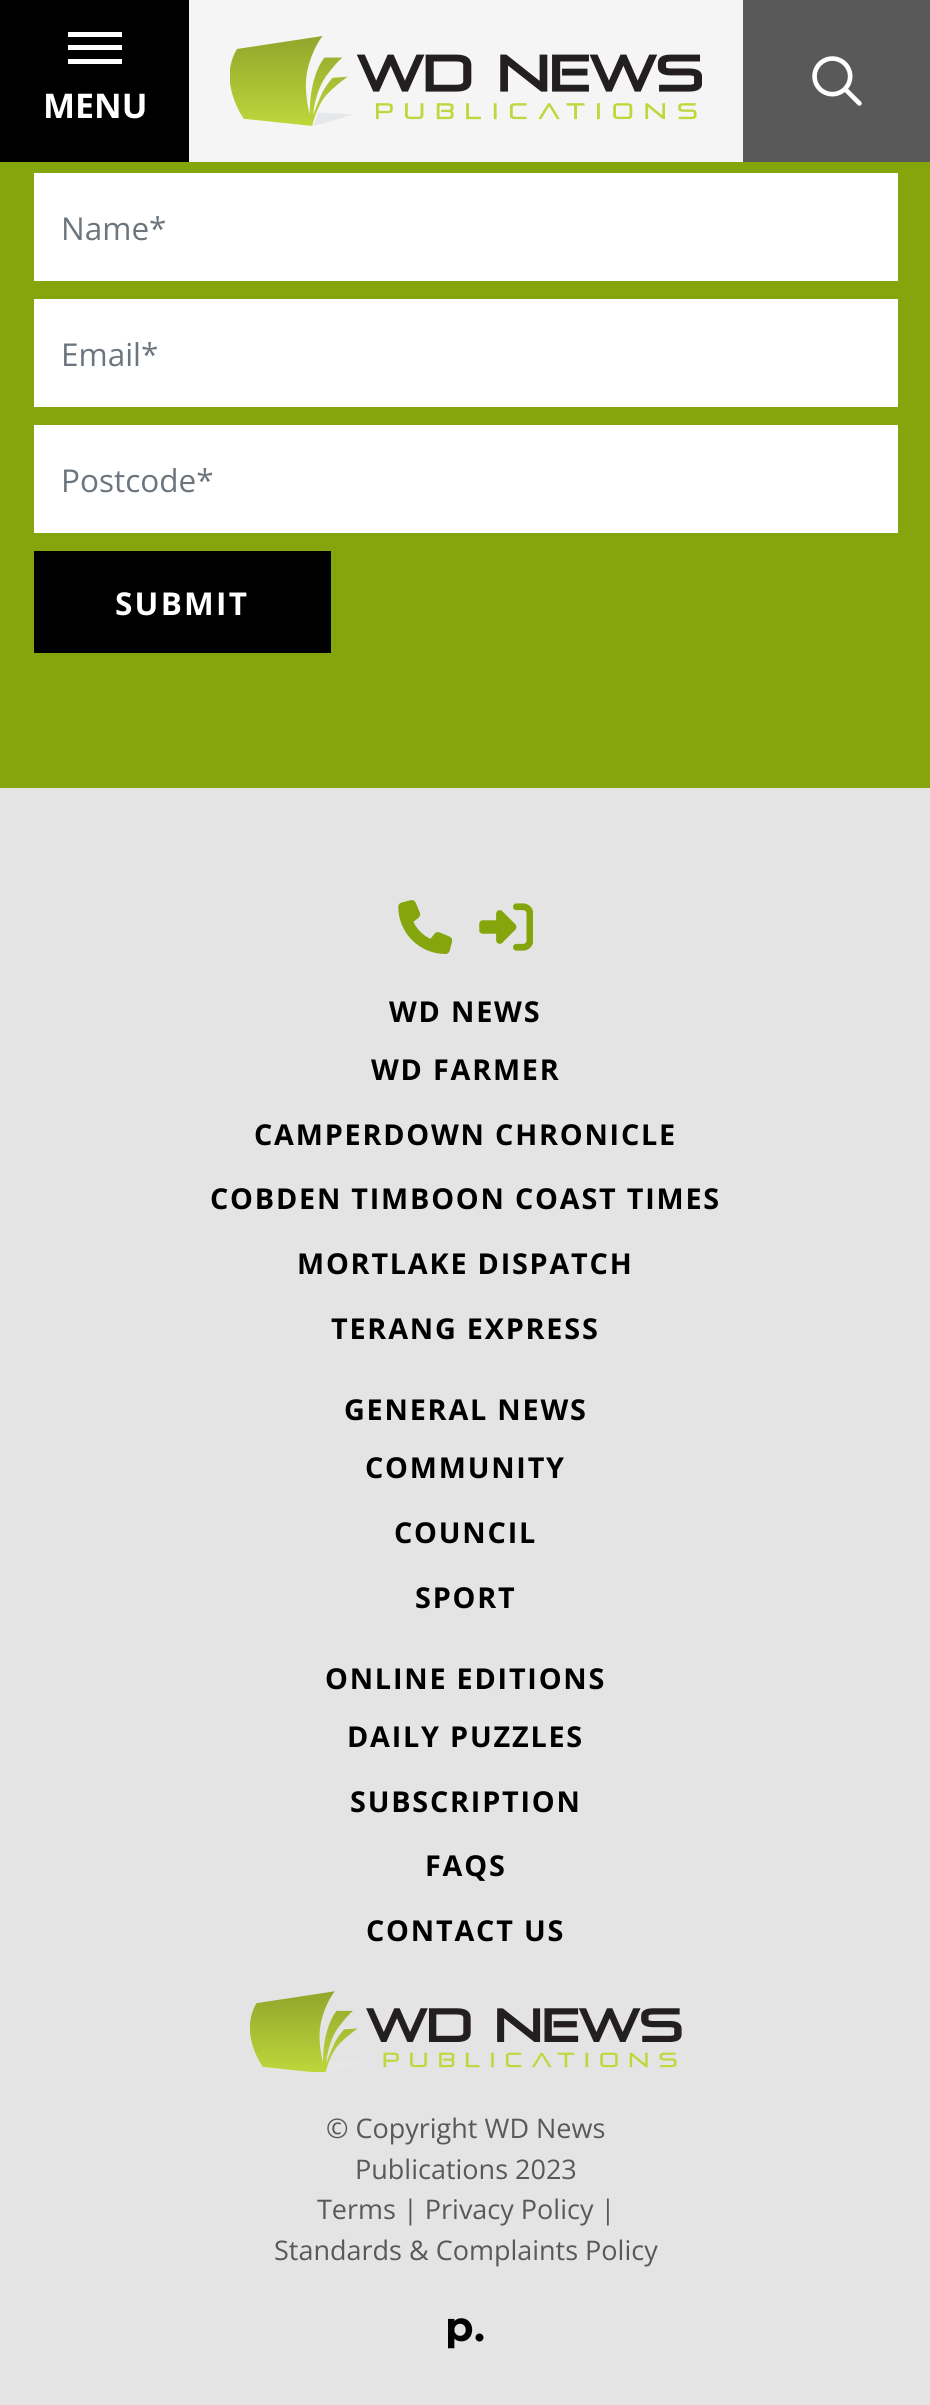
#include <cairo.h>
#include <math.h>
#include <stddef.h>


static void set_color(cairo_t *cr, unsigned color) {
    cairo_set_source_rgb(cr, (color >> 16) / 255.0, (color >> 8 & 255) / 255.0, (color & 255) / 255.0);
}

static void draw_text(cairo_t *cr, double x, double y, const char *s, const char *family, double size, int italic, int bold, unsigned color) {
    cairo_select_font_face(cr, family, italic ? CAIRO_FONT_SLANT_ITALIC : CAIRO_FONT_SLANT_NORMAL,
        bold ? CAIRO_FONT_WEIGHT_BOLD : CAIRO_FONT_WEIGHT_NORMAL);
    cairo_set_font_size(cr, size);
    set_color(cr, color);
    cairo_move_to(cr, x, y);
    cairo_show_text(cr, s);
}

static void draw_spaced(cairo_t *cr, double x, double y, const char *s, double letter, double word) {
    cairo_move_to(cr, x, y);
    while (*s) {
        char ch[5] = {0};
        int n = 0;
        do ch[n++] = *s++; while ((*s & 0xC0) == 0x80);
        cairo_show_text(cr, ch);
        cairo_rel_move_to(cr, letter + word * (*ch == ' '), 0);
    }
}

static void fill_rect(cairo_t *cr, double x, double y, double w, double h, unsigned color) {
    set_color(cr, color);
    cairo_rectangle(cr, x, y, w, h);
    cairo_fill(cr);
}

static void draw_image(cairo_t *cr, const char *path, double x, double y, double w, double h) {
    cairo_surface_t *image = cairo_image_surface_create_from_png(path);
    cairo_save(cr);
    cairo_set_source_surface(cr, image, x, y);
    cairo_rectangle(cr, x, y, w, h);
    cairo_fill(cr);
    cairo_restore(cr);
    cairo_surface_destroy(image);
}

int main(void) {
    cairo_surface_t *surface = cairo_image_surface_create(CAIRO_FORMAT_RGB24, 930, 2405);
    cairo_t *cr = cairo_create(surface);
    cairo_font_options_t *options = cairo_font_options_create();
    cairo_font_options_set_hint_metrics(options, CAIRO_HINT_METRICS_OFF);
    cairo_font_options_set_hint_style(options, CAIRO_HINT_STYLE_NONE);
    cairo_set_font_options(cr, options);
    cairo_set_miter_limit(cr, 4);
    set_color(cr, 0x85A50D);
    cairo_paint(cr);
    fill_rect(cr, 189, 0, 554, 162, 0xF5F5F5);
    fill_rect(cr, 0, 0, 189, 162, 0x000000);
    fill_rect(cr, 68, 32, 54, 5, 0xFFFFFF);
    fill_rect(cr, 68, 45, 54, 5, 0xFFFFFF);
    fill_rect(cr, 68, 59, 54, 5, 0xFFFFFF);
    draw_text(cr, 43, 118, "MENU", "Open Sans", 34, 0, 1, 0xFFFFFF);
    draw_image(cr, "assets/img1.png", 230, 36, 472, 90);
    fill_rect(cr, 743, 0, 187, 162, 0x595959);
    draw_image(cr, "assets/img2.png", 812, 56, 50, 50);
    fill_rect(cr, 34, 173, 864, 108, 0xFFFFFF);
    draw_text(cr, 61, 240, "Name*", "Open Sans", 31.5, 0, 0, 0x6C757D);
    fill_rect(cr, 34, 299, 864, 108, 0xFFFFFF);
    draw_text(cr, 61, 366, "Email*", "Open Sans", 31.5, 0, 0, 0x6C757D);
    fill_rect(cr, 34, 425, 864, 108, 0xFFFFFF);
    draw_text(cr, 61, 492, "Postcode*", "Open Sans", 31.5, 0, 0, 0x6C757D);
    fill_rect(cr, 34, 551, 297, 102, 0x000000);
    cairo_select_font_face(cr, "Open Sans", CAIRO_FONT_SLANT_NORMAL, CAIRO_FONT_WEIGHT_BOLD);
    set_color(cr, 0xFFFFFF);
    draw_spaced(cr, 115, 615, "SUBMIT", 2.25, 0);
    fill_rect(cr, 0, 788, 930, 1617, 0xE4E4E4);
    draw_image(cr, "assets/img3.png", 398, 900, 54, 54);
    draw_image(cr, "assets/img4.png", 479, 903, 54, 48);
    cairo_set_font_size(cr, 28.75);
    set_color(cr, 0x000000);
    draw_spaced(cr, 389, 1022, "WD NEWS", 1.8, 0);
    draw_spaced(cr, 371, 1080, "WD FARMER", 1.8, 0);
    draw_spaced(cr, 254, 1145, "CAMPERDOWN CHRONICLE", 1.8, 0);
    draw_spaced(cr, 210, 1209, "COBDEN TIMBOON COAST TIMES", 1.8, 0);
    draw_spaced(cr, 297, 1274, "MORTLAKE DISPATCH", 1.8, 0);
    draw_spaced(cr, 331, 1339, "TERANG EXPRESS", 1.8, 0);
    draw_spaced(cr, 344, 1420, "GENERAL NEWS", 1.8, 0);
    draw_spaced(cr, 365, 1478, "COMMUNITY", 1.8, 0);
    draw_spaced(cr, 394, 1543, "COUNCIL", 1.8, 0);
    draw_spaced(cr, 415, 1608, "SPORT", 1.8, 0);
    draw_spaced(cr, 325, 1689, "ONLINE EDITIONS", 1.8, 0);
    draw_spaced(cr, 347, 1747, "DAILY PUZZLES", 1.8, 0);
    draw_spaced(cr, 350, 1812, "SUBSCRIPTION", 1.8, 0);
    draw_spaced(cr, 425, 1876, "FAQS", 1.8, 0);
    draw_spaced(cr, 366, 1941, "CONTACT US", 1.8, 0);
    draw_image(cr, "assets/img5.png", 250, 1991, 432, 81);
    draw_text(cr, 326, 2138, "© Copyright WD News", "Open Sans", 27, 0, 0, 0x595959);
    draw_text(cr, 355, 2179, "Publications 2023", "Open Sans", 27, 0, 0, 0x595959);
    draw_text(cr, 317, 2219, "Terms | Privacy Policy |", "Open Sans", 27, 0, 0, 0x595959);
    draw_text(cr, 274, 2260, "Standards & Complaints Policy", "Open Sans", 27, 0, 0, 0x595959);
    draw_image(cr, "assets/img6.png", 448, 2318, 36, 31);
    cairo_surface_write_to_png(surface, "output.png");
    cairo_font_options_destroy(options);
    cairo_destroy(cr);
    cairo_surface_destroy(surface);
    return 0;
}
